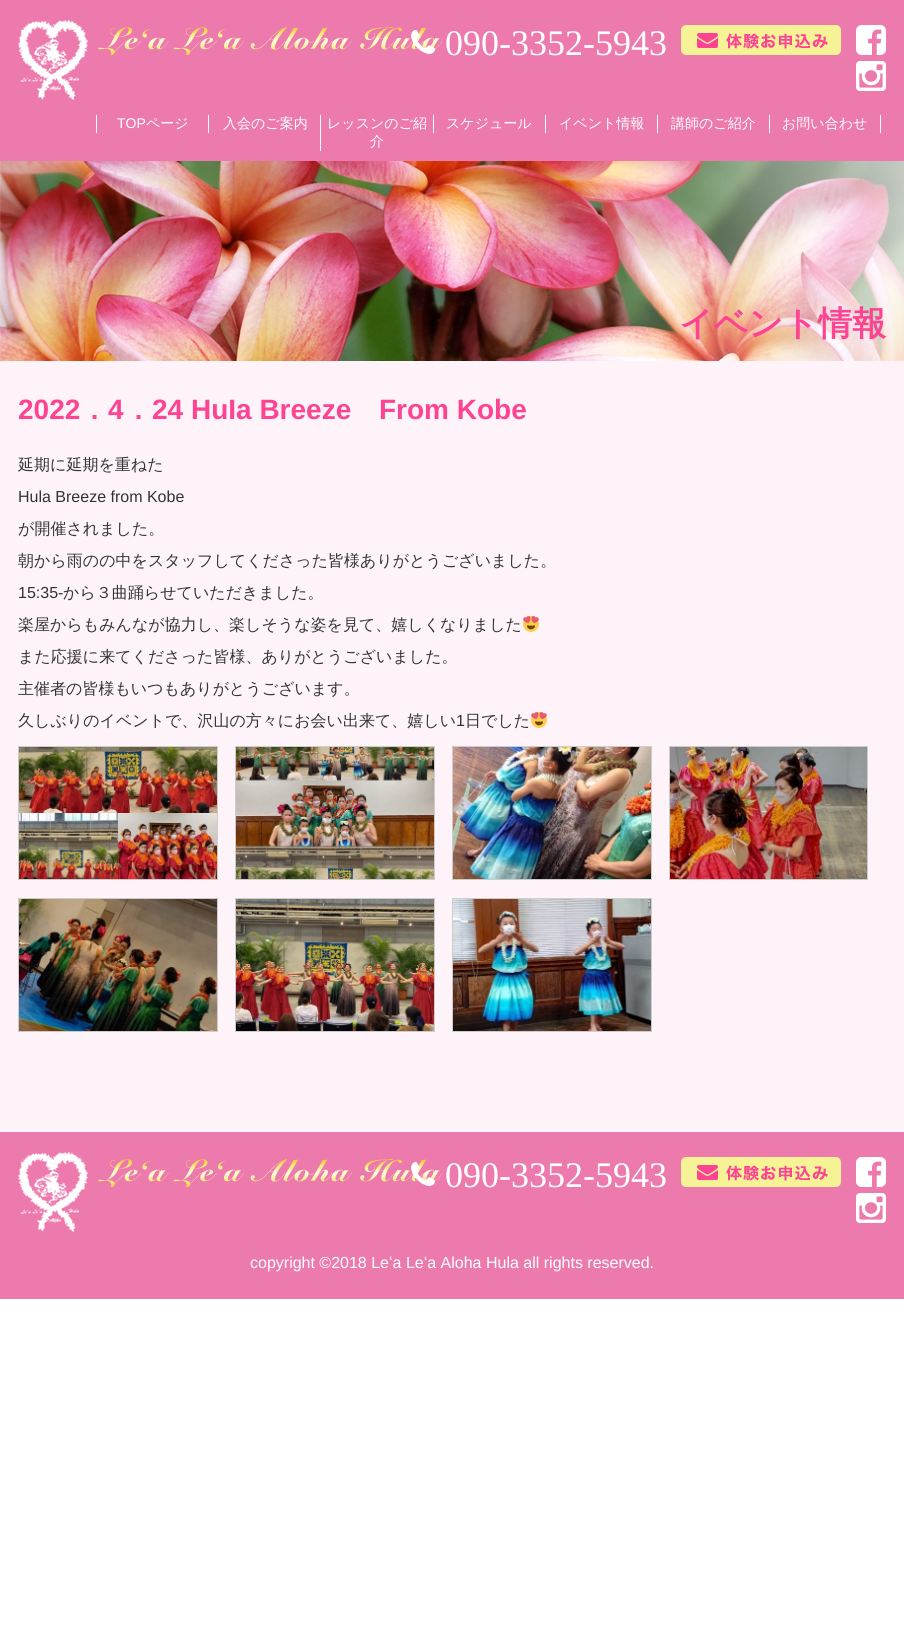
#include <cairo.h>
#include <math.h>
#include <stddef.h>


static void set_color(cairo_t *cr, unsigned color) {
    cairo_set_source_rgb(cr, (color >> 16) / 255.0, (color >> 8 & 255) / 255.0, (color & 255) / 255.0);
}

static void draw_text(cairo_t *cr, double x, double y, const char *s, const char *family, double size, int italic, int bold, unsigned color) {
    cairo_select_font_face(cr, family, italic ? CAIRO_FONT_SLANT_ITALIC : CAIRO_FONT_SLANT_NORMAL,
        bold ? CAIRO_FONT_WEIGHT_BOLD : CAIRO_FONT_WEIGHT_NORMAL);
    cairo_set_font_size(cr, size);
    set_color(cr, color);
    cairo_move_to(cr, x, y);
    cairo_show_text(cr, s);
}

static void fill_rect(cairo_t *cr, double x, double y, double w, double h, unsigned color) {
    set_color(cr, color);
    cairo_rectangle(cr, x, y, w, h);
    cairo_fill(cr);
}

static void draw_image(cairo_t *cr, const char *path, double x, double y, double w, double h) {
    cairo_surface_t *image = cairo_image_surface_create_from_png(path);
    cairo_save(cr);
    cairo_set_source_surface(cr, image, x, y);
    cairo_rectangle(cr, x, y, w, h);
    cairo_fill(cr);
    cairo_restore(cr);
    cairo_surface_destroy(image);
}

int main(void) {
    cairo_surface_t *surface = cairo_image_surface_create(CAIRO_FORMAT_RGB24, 904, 1651);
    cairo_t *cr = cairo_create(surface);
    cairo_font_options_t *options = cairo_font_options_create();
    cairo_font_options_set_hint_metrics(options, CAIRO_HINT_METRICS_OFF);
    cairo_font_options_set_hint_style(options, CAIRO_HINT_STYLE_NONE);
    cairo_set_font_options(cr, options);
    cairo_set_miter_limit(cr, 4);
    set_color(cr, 0xFFFFFF);
    cairo_paint(cr);
    fill_rect(cr, 0, 0, 904, 1299, 0xEC7AAD);
    draw_image(cr, "assets/img1.png", 18, 20, 70, 80);
    draw_image(cr, "assets/img2.png", 98, 27, 345, 28);
    draw_image(cr, "assets/img3.png", 411, 30, 24, 24);
    draw_text(cr, 445, 55, "090-3352-5943", "Liberation Serif", 36, 0, 0, 0xFFFFFF);
    draw_image(cr, "assets/img4.png", 681, 25, 160, 30);
    draw_image(cr, "assets/img5.png", 856, 25, 30, 30);
    draw_image(cr, "assets/img6.png", 856, 61, 30, 30);
    fill_rect(cr, 96, 115, 1, 18, 0xFFFFFF);
    draw_text(cr, 117, 128, "TOP", "Liberation Sans", 14, 0, 0, 0xFFFFFF);
    draw_text(cr, 146, 128, "ページ", "WenQuanYi Zen Hei Medium", 14, 0, 0, 0xFFFFFF);
    fill_rect(cr, 208, 115, 1, 18, 0xFFFFFF);
    draw_text(cr, 223, 128, "入会のご案内", "WenQuanYi Zen Hei Medium", 14, 0, 0, 0xFFFFFF);
    fill_rect(cr, 320, 115, 1, 36, 0xFFFFFF);
    draw_text(cr, 327, 128, "レッスンのご紹", "WenQuanYi Zen Hei Medium", 14, 0, 0, 0xFFFFFF);
    draw_text(cr, 370, 146, "介", "WenQuanYi Zen Hei Medium", 14, 0, 0, 0xFFFFFF);
    fill_rect(cr, 433, 115, 1, 18, 0xFFFFFF);
    draw_text(cr, 446, 128, "スケジュール", "WenQuanYi Zen Hei Medium", 14, 0, 0, 0xFFFFFF);
    fill_rect(cr, 545, 115, 1, 18, 0xFFFFFF);
    draw_text(cr, 559, 128, "イベント情報", "WenQuanYi Zen Hei Medium", 14, 0, 0, 0xFFFFFF);
    fill_rect(cr, 657, 115, 1, 18, 0xFFFFFF);
    draw_text(cr, 671, 128, "講師のご紹介", "WenQuanYi Zen Hei Medium", 14, 0, 0, 0xFFFFFF);
    fill_rect(cr, 880, 115, 1, 18, 0xFFFFFF);
    fill_rect(cr, 769, 115, 1, 18, 0xFFFFFF);
    draw_text(cr, 782, 128, "お問い合わせ", "WenQuanYi Zen Hei Medium", 14, 0, 0, 0xFFFFFF);
    draw_image(cr, "assets/img7.png", 0, 161, 904, 200);
    draw_text(cr, 679, 335, "イベント情報", "WenQuanYi Zen Hei", 34, 0, 1, 0xFD4492);
    fill_rect(cr, 0, 361, 904, 771, 0xFDF3F8);
    draw_text(cr, 18, 419, "2022", "Liberation Sans", 28, 0, 1, 0xFD4492);
    draw_text(cr, 80, 419, "．", "WenQuanYi Zen Hei", 28, 0, 1, 0xFD4492);
    draw_text(cr, 108, 419, "4", "Liberation Sans", 28, 0, 1, 0xFD4492);
    draw_text(cr, 124, 419, "．", "WenQuanYi Zen Hei", 28, 0, 1, 0xFD4492);
    draw_text(cr, 152, 419, "24 HuIa Breeze", "Liberation Sans", 28, 0, 1, 0xFD4492);
    draw_text(cr, 379, 419, "From Kobe", "Liberation Sans", 28, 0, 1, 0xFD4492);
    draw_text(cr, 18, 470, "延期に延期を重ねた", "WenQuanYi Zen Hei Medium", 16, 0, 0, 0x333333);
    draw_text(cr, 18, 502, "Hula Breeze from Kobe", "Liberation Sans", 16, 0, 0, 0x333333);
    draw_text(cr, 18, 534, "が開催されました。", "WenQuanYi Zen Hei Medium", 16, 0, 0, 0x333333);
    draw_text(cr, 18, 566, "朝から雨のの中をスタッフしてくださった皆様ありがとうございました。", "WenQuanYi Zen Hei Medium", 16, 0, 0, 0x333333);
    draw_text(cr, 18, 598, "15:35-", "Liberation Sans", 16, 0, 0, 0x333333);
    draw_text(cr, 63, 598, "から３曲踊らせていただきました。", "WenQuanYi Zen Hei Medium", 16, 0, 0, 0x333333);
    draw_text(cr, 18, 630, "楽屋からもみんなが協力し、楽しそうな姿を見て、嬉しくなりました", "WenQuanYi Zen Hei Medium", 16, 0, 0, 0x333333);
    draw_image(cr, "assets/img8.png", 523, 616, 16, 16);
    draw_text(cr, 18, 662, "また応援に来てくださった皆様、ありがとうございました。", "WenQuanYi Zen Hei Medium", 16, 0, 0, 0x333333);
    draw_text(cr, 18, 694, "主催者の皆様もいつもありがとうございます。", "WenQuanYi Zen Hei Medium", 16, 0, 0, 0x333333);
    draw_text(cr, 18, 726, "久しぶりのイベントで、沢山の方々にお会い出来て、嬉しい", "WenQuanYi Zen Hei Medium", 16, 0, 0, 0x333333);
    draw_text(cr, 456, 726, "1", "Liberation Sans", 16, 0, 0, 0x333333);
    draw_text(cr, 465, 726, "日でした", "WenQuanYi Zen Hei Medium", 16, 0, 0, 0x333333);
    draw_image(cr, "assets/img8.png", 531, 712, 16, 16);
    cairo_rectangle(cr, 18.5, 746.5, 199, 133);
    set_color(cr, 0xCCCCCC);
    cairo_set_line_width(cr, 1);
    cairo_stroke(cr);
    draw_image(cr, "assets/img9.png", 19, 747, 198, 132);
    cairo_rectangle(cr, 235.5, 746.5, 199, 133);
    cairo_stroke(cr);
    draw_image(cr, "assets/img10.png", 236, 747, 198, 132);
    cairo_rectangle(cr, 452.5, 746.5, 199, 133);
    cairo_stroke(cr);
    draw_image(cr, "assets/img11.png", 453, 747, 198, 132);
    cairo_rectangle(cr, 669.5, 746.5, 198, 133);
    cairo_stroke(cr);
    draw_image(cr, "assets/img12.png", 670, 747, 197, 132);
    cairo_rectangle(cr, 18.5, 898.5, 199, 133);
    cairo_stroke(cr);
    draw_image(cr, "assets/img13.png", 19, 899, 198, 132);
    cairo_rectangle(cr, 235.5, 898.5, 199, 133);
    cairo_stroke(cr);
    draw_image(cr, "assets/img14.png", 236, 899, 198, 132);
    cairo_rectangle(cr, 452.5, 898.5, 199, 133);
    cairo_stroke(cr);
    draw_image(cr, "assets/img15.png", 453, 899, 198, 132);
    draw_image(cr, "assets/img1.png", 18, 1152, 70, 80);
    draw_image(cr, "assets/img2.png", 98, 1159, 345, 28);
    draw_image(cr, "assets/img3.png", 411, 1162, 24, 24);
    draw_text(cr, 445, 1187, "090-3352-5943", "Liberation Serif", 36, 0, 0, 0xFFFFFF);
    draw_image(cr, "assets/img4.png", 681, 1157, 160, 30);
    draw_image(cr, "assets/img5.png", 856, 1157, 30, 30);
    draw_image(cr, "assets/img6.png", 856, 1193, 30, 30);
    draw_text(cr, 250, 1268, "copyright ©2018 Leʻa Leʻa Aloha Hula all rights reserved.", "Liberation Sans", 16, 0, 0, 0xFFFFFF);
    cairo_surface_write_to_png(surface, "output.png");
    cairo_font_options_destroy(options);
    cairo_destroy(cr);
    cairo_surface_destroy(surface);
    return 0;
}
